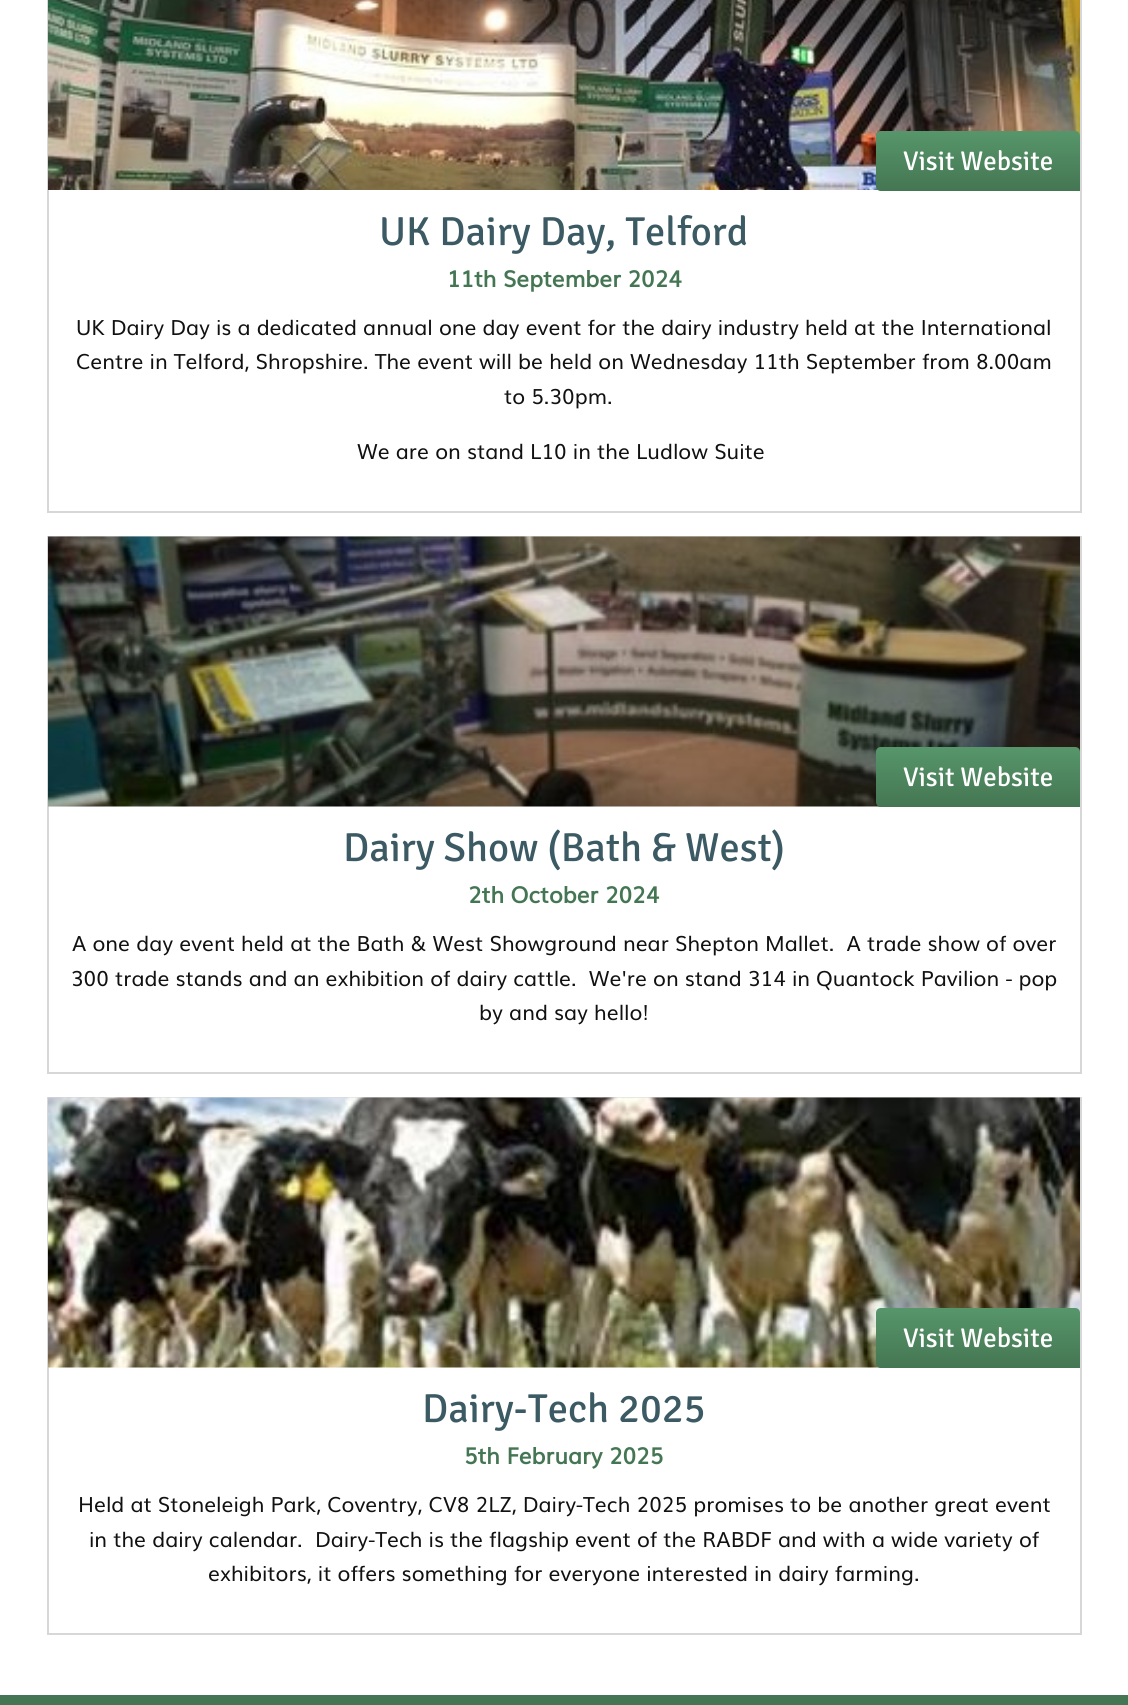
#include <cairo.h>
#include <math.h>
#include <stddef.h>


static void set_color(cairo_t *cr, unsigned color) {
    cairo_set_source_rgb(cr, (color >> 16) / 255.0, (color >> 8 & 255) / 255.0, (color & 255) / 255.0);
}

static void draw_text(cairo_t *cr, double x, double y, const char *s, const char *family, double size, int italic, int bold, unsigned color) {
    cairo_select_font_face(cr, family, italic ? CAIRO_FONT_SLANT_ITALIC : CAIRO_FONT_SLANT_NORMAL,
        bold ? CAIRO_FONT_WEIGHT_BOLD : CAIRO_FONT_WEIGHT_NORMAL);
    cairo_set_font_size(cr, size);
    set_color(cr, color);
    cairo_move_to(cr, x, y);
    cairo_show_text(cr, s);
}

static void fill_rect(cairo_t *cr, double x, double y, double w, double h, unsigned color) {
    set_color(cr, color);
    cairo_rectangle(cr, x, y, w, h);
    cairo_fill(cr);
}

static void draw_image(cairo_t *cr, const char *path, double x, double y, double w, double h) {
    cairo_surface_t *image = cairo_image_surface_create_from_png(path);
    cairo_save(cr);
    cairo_set_source_surface(cr, image, x, y);
    cairo_rectangle(cr, x, y, w, h);
    cairo_fill(cr);
    cairo_restore(cr);
    cairo_surface_destroy(image);
}

int main(void) {
    cairo_surface_t *surface = cairo_image_surface_create(CAIRO_FORMAT_RGB24, 1128, 1705);
    cairo_t *cr = cairo_create(surface);
    cairo_font_options_t *options = cairo_font_options_create();
    cairo_font_options_set_hint_metrics(options, CAIRO_HINT_METRICS_OFF);
    cairo_font_options_set_hint_style(options, CAIRO_HINT_STYLE_NONE);
    cairo_set_font_options(cr, options);
    cairo_set_miter_limit(cr, 4);
    cairo_pattern_t *gradient;
    set_color(cr, 0xFFFFFF);
    cairo_paint(cr);
    cairo_rectangle(cr, 48, -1, 1033, 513);
    set_color(cr, 0xD7D7D7);
    cairo_stroke(cr);
    draw_image(cr, "assets/img1.png", 48, 0, 1032, 190);
    gradient = cairo_pattern_create_linear(978, 131, 978, 191);
    cairo_pattern_add_color_stop_rgba(gradient, 0, 0.341, 0.588, 0.416, 1);
    cairo_pattern_add_color_stop_rgba(gradient, 1, 0.267, 0.463, 0.325, 1);
    cairo_set_source(cr, gradient);
    cairo_pattern_destroy(gradient);
    cairo_new_path(cr);
    cairo_move_to(cr, 881, 131);
    cairo_line_to(cr, 1075, 131);
    cairo_curve_to(cr, 1078, 131, 1080, 133, 1080, 136);
    cairo_line_to(cr, 1080, 191);
    cairo_line_to(cr, 881, 191);
    cairo_curve_to(cr, 878, 191, 876, 189, 876, 186);
    cairo_line_to(cr, 876, 136);
    cairo_curve_to(cr, 876, 133, 878, 131, 881, 131);
    cairo_close_path(cr);
    cairo_fill(cr);
    draw_text(cr, 903, 170, "Visit Website", "Signika", 27, 0, 0, 0xFFFFFF);
    draw_text(cr, 379, 245, "UK Dairy Day, Telford", "Signika", 40.5, 0, 0, 0x3B5A63);
    draw_text(cr, 447, 287, "11th September 2024", "Muli", 22.5, 0, 1, 0x447653);
    draw_text(cr, 76, 335, "UK Dairy Day is a dedicated annual one day event for the dairy industry held at the International", "Muli", 21, 0, 0, 0x111111);
    draw_text(cr, 76, 369, "Centre in Telford, Shropshire. The event will be held on Wednesday 11th September from 8.00am", "Muli", 21, 0, 0, 0x111111);
    draw_text(cr, 504, 404, "to 5.30pm.", "Muli", 21, 0, 0, 0x111111);
    draw_text(cr, 357, 459, "We are on stand L10 in the Ludlow Suite", "Muli", 21, 0, 0, 0x111111);
    cairo_rectangle(cr, 48, 537, 1033, 536);
    set_color(cr, 0xD7D7D7);
    cairo_stroke(cr);
    draw_image(cr, "assets/img2.png", 48, 536, 1032, 271);
    gradient = cairo_pattern_create_linear(978, 747, 978, 807);
    cairo_pattern_add_color_stop_rgba(gradient, 0, 0.341, 0.588, 0.416, 1);
    cairo_pattern_add_color_stop_rgba(gradient, 1, 0.267, 0.463, 0.325, 1);
    cairo_set_source(cr, gradient);
    cairo_pattern_destroy(gradient);
    cairo_new_path(cr);
    cairo_move_to(cr, 881, 747);
    cairo_line_to(cr, 1075, 747);
    cairo_curve_to(cr, 1078, 747, 1080, 749, 1080, 752);
    cairo_line_to(cr, 1080, 807);
    cairo_line_to(cr, 881, 807);
    cairo_curve_to(cr, 878, 807, 876, 805, 876, 802);
    cairo_line_to(cr, 876, 752);
    cairo_curve_to(cr, 876, 749, 878, 747, 881, 747);
    cairo_close_path(cr);
    cairo_fill(cr);
    draw_text(cr, 903, 786, "Visit Website", "Signika", 27, 0, 0, 0xFFFFFF);
    draw_text(cr, 343, 861, "Dairy Show (Bath & West)", "Signika", 40.5, 0, 0, 0x3B5A63);
    draw_text(cr, 468, 903, "2th October 2024", "Muli", 22.5, 0, 1, 0x447653);
    draw_text(cr, 72, 951, "A one day event held at the Bath & West Showground near Shepton Mallet.  A trade show of over", "Muli", 21, 0, 0, 0x111111);
    draw_text(cr, 71, 986, "300 trade stands and an exhibition of dairy cattle.  We're on stand 314 in Quantock Pavilion - pop", "Muli", 21, 0, 0, 0x111111);
    draw_text(cr, 479, 1020, "by and say hello!", "Muli", 21, 0, 0, 0x111111);
    cairo_rectangle(cr, 48, 1098, 1033, 536);
    set_color(cr, 0xD7D7D7);
    cairo_stroke(cr);
    draw_image(cr, "assets/img3.png", 48, 1097, 1032, 271);
    gradient = cairo_pattern_create_linear(978, 1308, 978, 1368);
    cairo_pattern_add_color_stop_rgba(gradient, 0, 0.341, 0.588, 0.416, 1);
    cairo_pattern_add_color_stop_rgba(gradient, 1, 0.267, 0.463, 0.325, 1);
    cairo_set_source(cr, gradient);
    cairo_pattern_destroy(gradient);
    cairo_new_path(cr);
    cairo_move_to(cr, 881, 1308);
    cairo_line_to(cr, 1075, 1308);
    cairo_curve_to(cr, 1078, 1308, 1080, 1310, 1080, 1313);
    cairo_line_to(cr, 1080, 1368);
    cairo_line_to(cr, 881, 1368);
    cairo_curve_to(cr, 878, 1368, 876, 1366, 876, 1363);
    cairo_line_to(cr, 876, 1313);
    cairo_curve_to(cr, 876, 1310, 878, 1308, 881, 1308);
    cairo_close_path(cr);
    cairo_fill(cr);
    draw_text(cr, 903, 1347, "Visit Website", "Signika", 27, 0, 0, 0xFFFFFF);
    draw_text(cr, 422, 1422, "Dairy-Tech 2025", "Signika", 40.5, 0, 0, 0x3B5A63);
    draw_text(cr, 464, 1464, "5th February 2025", "Muli", 22.5, 0, 1, 0x447653);
    draw_text(cr, 78, 1512, "Held at Stoneleigh Park, Coventry, CV8 2LZ, Dairy-Tech 2025 promises to be another great event", "Muli", 21, 0, 0, 0x111111);
    draw_text(cr, 89, 1547, "in the dairy calendar.  Dairy-Tech is the flagship event of the RABDF and with a wide variety of", "Muli", 21, 0, 0, 0x111111);
    draw_text(cr, 208, 1581, "exhibitors, it offers something for everyone interested in dairy farming.", "Muli", 21, 0, 0, 0x111111);
    fill_rect(cr, 0, 1695, 1128, 10, 0x447653);
    cairo_surface_write_to_png(surface, "output.png");
    cairo_font_options_destroy(options);
    cairo_destroy(cr);
    cairo_surface_destroy(surface);
    return 0;
}
